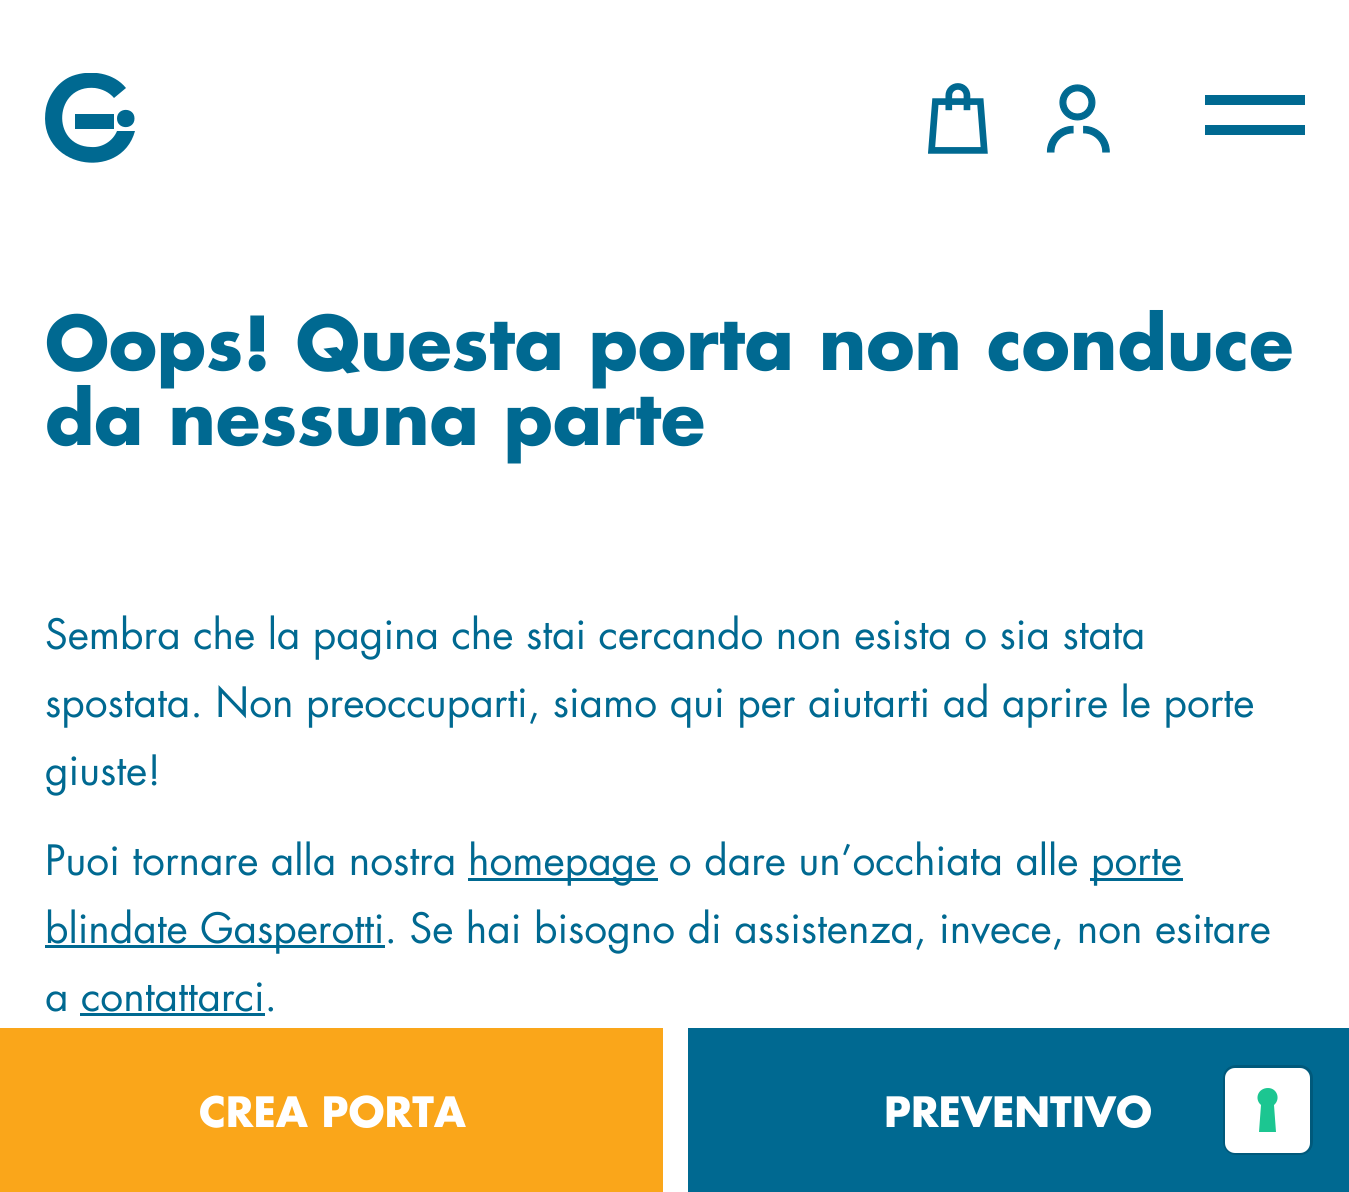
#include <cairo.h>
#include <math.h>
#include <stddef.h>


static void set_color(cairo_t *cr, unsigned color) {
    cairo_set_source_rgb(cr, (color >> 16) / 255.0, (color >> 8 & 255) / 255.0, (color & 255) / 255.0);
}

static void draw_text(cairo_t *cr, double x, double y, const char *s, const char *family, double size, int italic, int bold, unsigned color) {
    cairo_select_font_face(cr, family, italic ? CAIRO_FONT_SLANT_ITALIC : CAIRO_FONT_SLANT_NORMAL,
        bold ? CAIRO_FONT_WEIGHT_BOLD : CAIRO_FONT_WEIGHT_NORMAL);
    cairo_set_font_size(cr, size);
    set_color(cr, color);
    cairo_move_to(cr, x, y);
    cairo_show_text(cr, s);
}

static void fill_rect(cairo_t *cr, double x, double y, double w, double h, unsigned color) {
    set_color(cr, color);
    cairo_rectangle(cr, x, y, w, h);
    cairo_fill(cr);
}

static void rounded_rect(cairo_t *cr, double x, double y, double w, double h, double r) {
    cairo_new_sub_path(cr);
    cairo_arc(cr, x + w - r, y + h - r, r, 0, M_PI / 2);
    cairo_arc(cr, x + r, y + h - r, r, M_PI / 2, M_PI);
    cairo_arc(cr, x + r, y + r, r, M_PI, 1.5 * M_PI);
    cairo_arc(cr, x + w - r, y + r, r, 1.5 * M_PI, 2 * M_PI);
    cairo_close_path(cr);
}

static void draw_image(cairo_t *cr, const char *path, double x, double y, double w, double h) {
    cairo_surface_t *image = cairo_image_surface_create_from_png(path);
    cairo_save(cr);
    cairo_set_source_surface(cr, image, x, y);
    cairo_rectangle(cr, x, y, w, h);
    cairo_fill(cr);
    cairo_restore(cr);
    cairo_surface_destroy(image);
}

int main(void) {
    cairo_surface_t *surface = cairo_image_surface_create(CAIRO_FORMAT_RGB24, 1349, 1192);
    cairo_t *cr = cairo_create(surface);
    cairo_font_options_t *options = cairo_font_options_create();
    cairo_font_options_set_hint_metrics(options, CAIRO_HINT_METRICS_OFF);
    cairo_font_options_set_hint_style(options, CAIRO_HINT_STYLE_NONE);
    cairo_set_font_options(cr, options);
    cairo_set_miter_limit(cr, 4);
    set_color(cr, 0xFFFFFF);
    cairo_paint(cr);
    draw_text(cr, 45, 370, "Oops! Questa porta non conduce", "Futura", 72.3, 0, 1, 0x006991);
    draw_text(cr, 45, 445, "da nessuna parte", "Futura", 72.3, 0, 1, 0x006991);
    draw_text(cr, 45, 649, "Sembra che la pagina che stai cercando non esista o sia stata", "Futura", 40.7, 0, 0, 0x006991);
    draw_text(cr, 45, 717, "spostata. Non preoccuparti, siamo qui per aiutarti ad aprire le porte", "Futura", 40.7, 0, 0, 0x006991);
    draw_text(cr, 45, 785, "giuste!", "Futura", 40.7, 0, 0, 0x006991);
    draw_text(cr, 45, 875, "Puoi tornare alla nostra", "Futura", 40.7, 0, 0, 0x006991);
    fill_rect(cr, 468, 878, 190, 3, 0x006991);
    draw_text(cr, 468, 875, "homepage o dare un’occhiata alle", "Futura", 40.7, 0, 0, 0x006991);
    fill_rect(cr, 1090, 878, 93, 3, 0x006991);
    draw_text(cr, 1091, 875, "porte", "Futura", 40.7, 0, 0, 0x006991);
    fill_rect(cr, 45, 945, 340, 3, 0x006991);
    draw_text(cr, 45, 943, "blindate Gasperotti. Se hai bisogno di assistenza, invece, non esitare", "Futura", 40.7, 0, 0, 0x006991);
    draw_text(cr, 45, 1011, "a contattarci.", "Futura", 40.7, 0, 0, 0x006991);
    fill_rect(cr, 80, 1013, 185, 3, 0x006991);
    cairo_save(cr);
    cairo_rectangle(cr, 45, 73, 93, 90);
    cairo_clip(cr);
    cairo_new_path(cr);
    cairo_move_to(cr, 117, 131);
    cairo_curve_to(cr, 113, 141, 102, 148, 91, 147);
    cairo_curve_to(cr, 50, 146, 54, 84, 95, 88);
    cairo_curve_to(cr, 102, 89, 109, 92, 114, 98);
    cairo_line_to(cr, 126, 88);
    cairo_curve_to(cr, 114, 73, 91, 69, 72, 76);
    cairo_curve_to(cr, 59, 81, 49, 94, 46, 108);
    cairo_curve_to(cr, 35, 168, 121, 183, 135, 131);
    cairo_close_path(cr);
    cairo_fill(cr);
    cairo_restore(cr);
    fill_rect(cr, 75, 114, 39, 15, 0x006991);
    cairo_new_path(cr);
    cairo_move_to(cr, 134.5, 118.5);
    cairo_curve_to(cr, 134.5, 130, 117, 130, 117, 118.5);
    cairo_curve_to(cr, 117, 107, 134.5, 107, 134.5, 118.5);
    cairo_close_path(cr);
    cairo_fill(cr);
    draw_image(cr, "assets/img1.png", 928, 83, 60, 71);
    draw_image(cr, "assets/img2.png", 1046, 84, 64, 69);
    fill_rect(cr, 1205, 95, 100, 10, 0x006991);
    fill_rect(cr, 1205, 125, 100, 10, 0x006991);
    fill_rect(cr, 0, 1028, 663, 164, 0xFAA61A);
    draw_text(cr, 199, 1127, "CREA PORTA", "Futura", 40.7, 0, 1, 0xFFFFFF);
    fill_rect(cr, 688, 1028, 661, 164, 0x006991);
    draw_text(cr, 884, 1127, "PREVENTIVO", "Futura", 40.7, 0, 1, 0xFFFFFF);
    rounded_rect(cr, 1224.5, 1066.5, 87, 87, 11.5);
    set_color(cr, 0x00597B);
    cairo_set_line_width(cr, 3);
    cairo_stroke(cr);
    set_color(cr, 0xFFFFFF);
    rounded_rect(cr, 1225, 1068, 85, 85, 10);
    cairo_fill(cr);
    set_color(cr, 0x1CC691);
    cairo_set_fill_rule(cr, CAIRO_FILL_RULE_EVEN_ODD);
    cairo_new_path(cr);
    cairo_move_to(cr, 1268, 1088);
    cairo_curve_to(cr, 1277, 1088, 1281, 1099, 1274, 1105);
    cairo_line_to(cr, 1276, 1132);
    cairo_line_to(cr, 1259, 1132);
    cairo_line_to(cr, 1261, 1105);
    cairo_curve_to(cr, 1254, 1099, 1258, 1088, 1268, 1088);
    cairo_close_path(cr);
    cairo_fill(cr);
    cairo_surface_write_to_png(surface, "output.png");
    cairo_font_options_destroy(options);
    cairo_destroy(cr);
    cairo_surface_destroy(surface);
    return 0;
}
